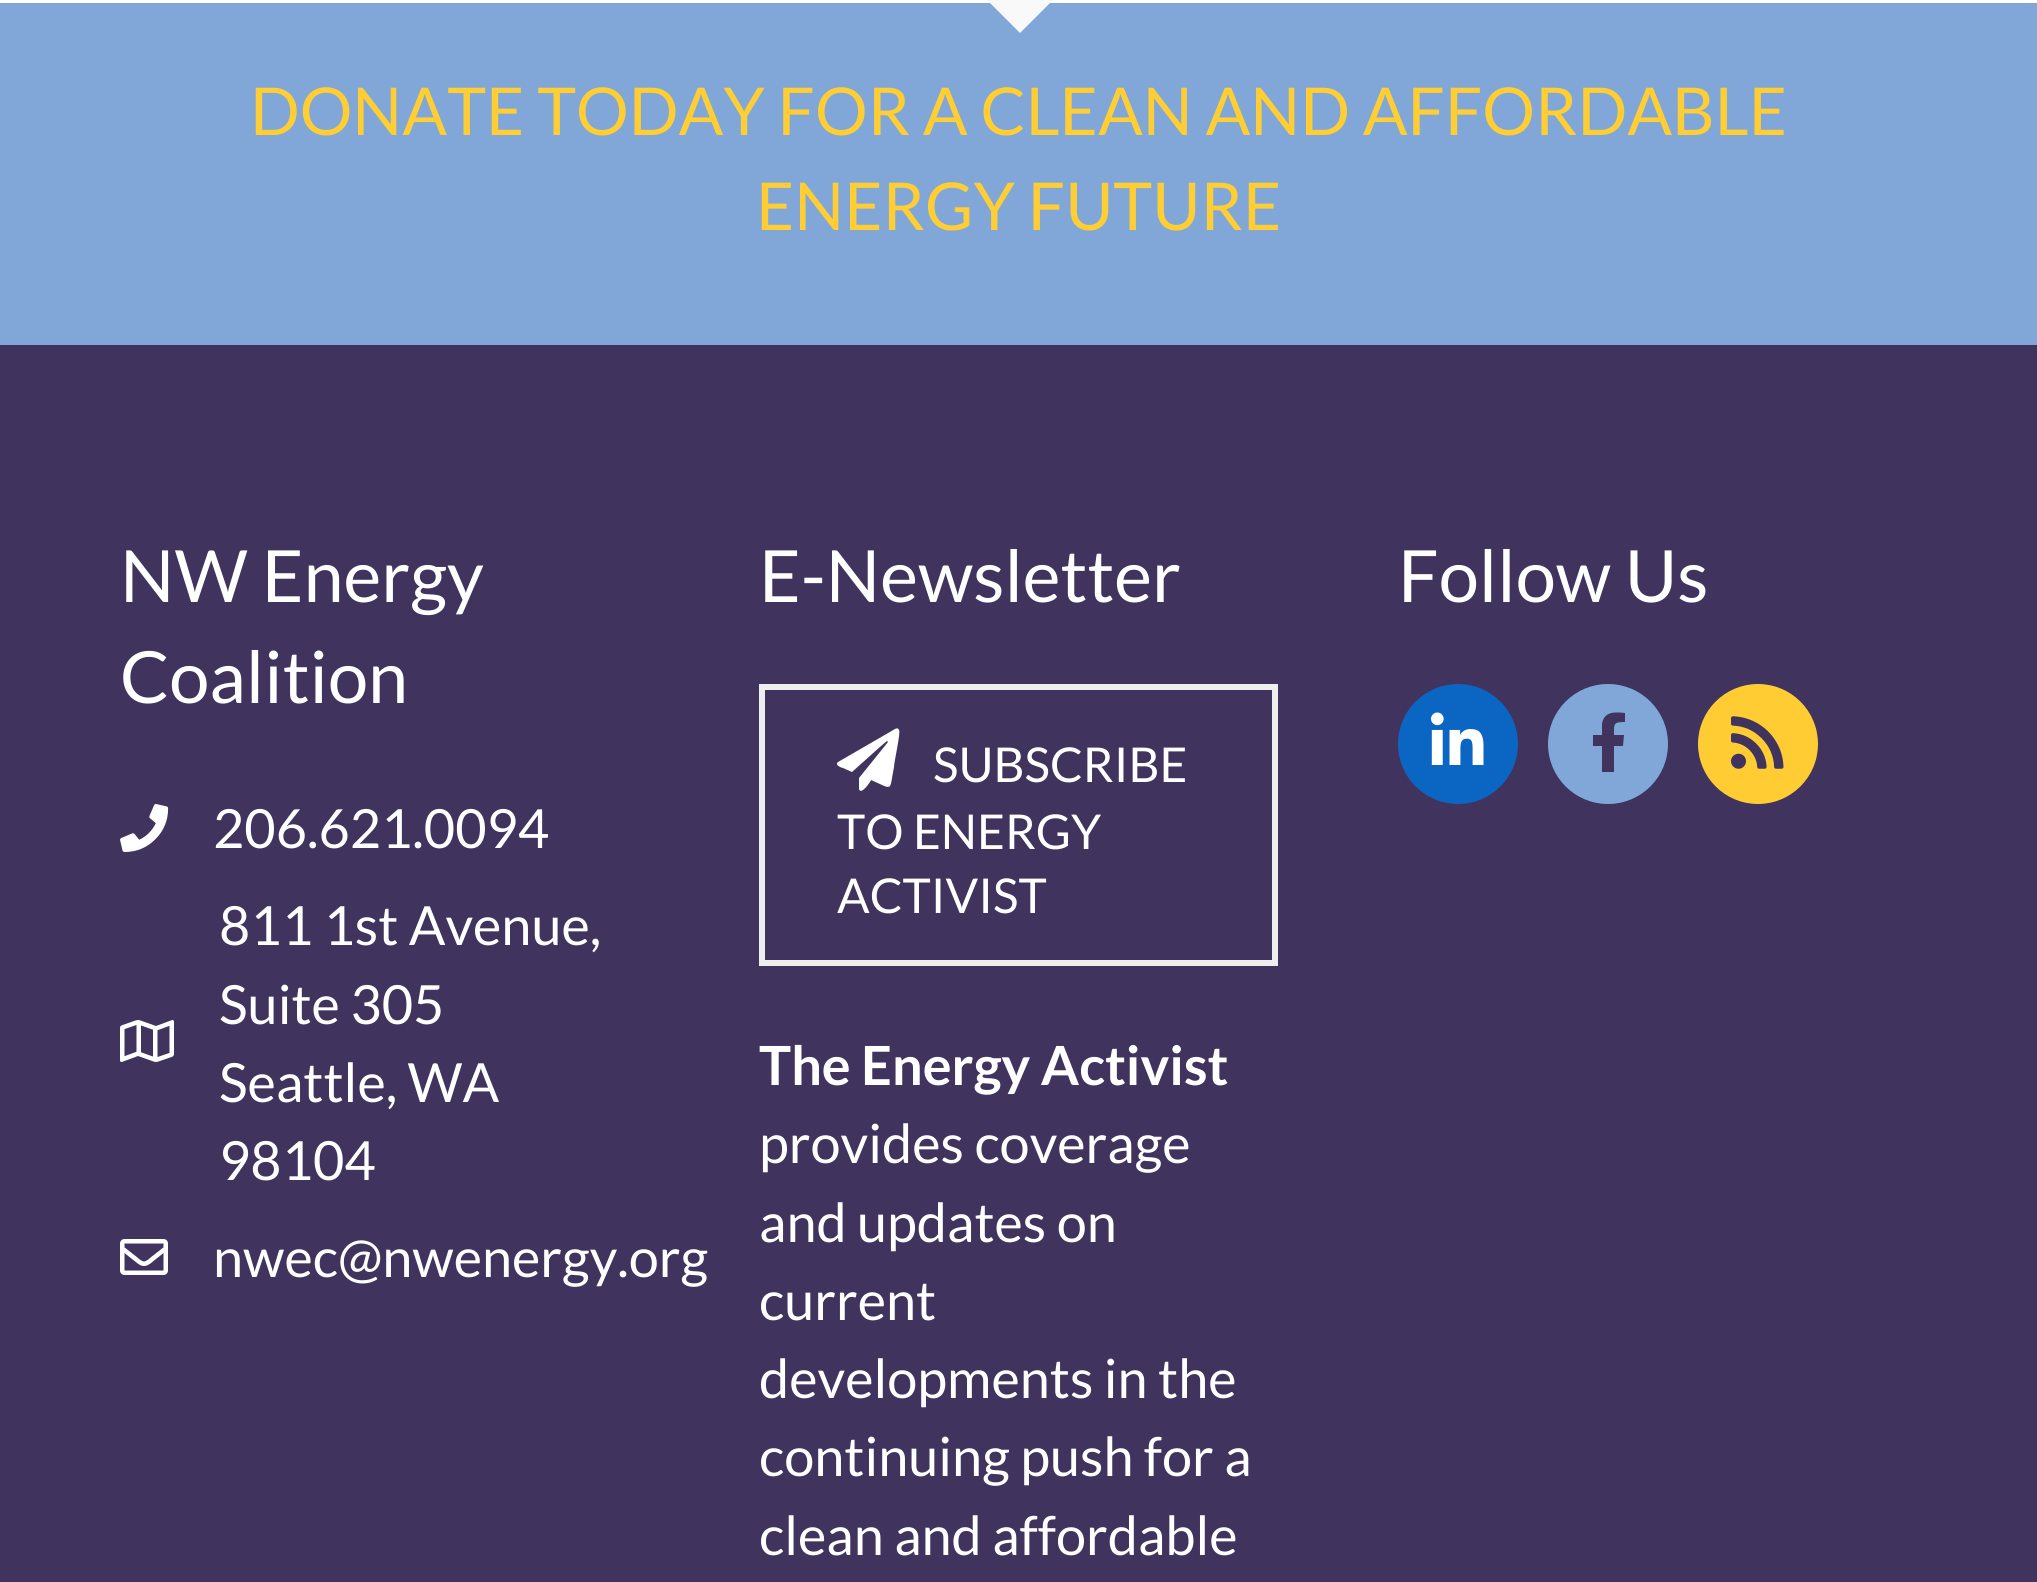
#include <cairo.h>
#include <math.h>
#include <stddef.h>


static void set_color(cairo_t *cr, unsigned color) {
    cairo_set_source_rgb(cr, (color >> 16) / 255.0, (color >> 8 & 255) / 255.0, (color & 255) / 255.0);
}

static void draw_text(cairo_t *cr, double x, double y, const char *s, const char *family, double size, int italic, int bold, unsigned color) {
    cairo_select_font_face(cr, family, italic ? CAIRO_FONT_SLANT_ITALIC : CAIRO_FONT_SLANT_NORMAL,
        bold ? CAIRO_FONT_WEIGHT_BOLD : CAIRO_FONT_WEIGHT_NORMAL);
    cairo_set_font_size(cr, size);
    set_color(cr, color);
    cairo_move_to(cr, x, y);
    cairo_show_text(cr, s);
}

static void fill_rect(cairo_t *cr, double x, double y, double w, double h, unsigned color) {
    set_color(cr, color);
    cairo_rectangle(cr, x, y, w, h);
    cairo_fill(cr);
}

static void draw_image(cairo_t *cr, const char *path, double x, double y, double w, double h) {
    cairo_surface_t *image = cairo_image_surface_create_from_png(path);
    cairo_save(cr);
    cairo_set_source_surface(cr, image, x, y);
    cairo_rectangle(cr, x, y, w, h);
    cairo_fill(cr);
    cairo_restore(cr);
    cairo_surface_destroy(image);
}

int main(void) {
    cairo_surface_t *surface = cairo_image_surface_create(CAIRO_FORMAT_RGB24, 2037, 1582);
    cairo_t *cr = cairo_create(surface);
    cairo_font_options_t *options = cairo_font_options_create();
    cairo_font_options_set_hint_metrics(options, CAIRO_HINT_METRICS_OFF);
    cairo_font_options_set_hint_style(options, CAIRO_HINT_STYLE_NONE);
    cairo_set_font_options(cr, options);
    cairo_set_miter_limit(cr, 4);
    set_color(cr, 0xFFFFFF);
    cairo_paint(cr);
    fill_rect(cr, 0, 3, 2037, 342, 0x80A7D8);
    set_color(cr, 0xF9F9F9);
    cairo_new_path(cr);
    cairo_move_to(cr, 987, 0);
    cairo_line_to(cr, 1053, 0);
    cairo_line_to(cr, 1020, 33);
    cairo_close_path(cr);
    cairo_fill(cr);
    draw_text(cr, 250, 135, "DONATE TODAY FOR A CLEAN AND AFFORDABLE", "Lato", 66, 0, 0, 0xFFCD34);
    draw_text(cr, 756, 230, "ENERGY FUTURE", "Lato", 66, 0, 0, 0xFFCD34);
    fill_rect(cr, 0, 345, 2037, 1237, 0x40335E);
    draw_text(cr, 120, 602, "NW Energy", "Lato", 72, 0, 0, 0xFFFFFF);
    draw_text(cr, 120, 703, "Coalition", "Lato", 72, 0, 0, 0xFFFFFF);
    draw_image(cr, "assets/img1.png", 120, 804, 49, 48);
    draw_text(cr, 213, 848, "206.621.0094", "Lato", 54, 0, 0, 0xFFFFFF);
    draw_image(cr, "assets/img2.png", 120, 1020, 54, 42);
    draw_text(cr, 219, 945, "811 1st Avenue,", "Lato", 54, 0, 0, 0xFFFFFF);
    draw_text(cr, 219, 1024, "Suite 305", "Lato", 54, 0, 0, 0xFFFFFF);
    draw_text(cr, 219, 1102, "Seattle, WA", "Lato", 54, 0, 0, 0xFFFFFF);
    draw_text(cr, 219, 1180, "98104", "Lato", 54, 0, 0, 0xFFFFFF);
    draw_image(cr, "assets/img3.png", 120, 1239, 48, 36);
    draw_text(cr, 213, 1277, "nwec@nwenergy.org", "Lato", 54, 0, 0, 0xFFFFFF);
    draw_text(cr, 759, 602, "E-Newsletter", "Lato", 72, 0, 0, 0xFFFFFF);
    cairo_rectangle(cr, 762, 687, 513, 276);
    set_color(cr, 0xEEEEEE);
    cairo_set_line_width(cr, 6);
    cairo_stroke(cr);
    set_color(cr, 0xFFFFFF);
    cairo_new_path(cr);
    cairo_move_to(cr, 895, 729);
    cairo_curve_to(cr, 897, 728, 898, 728, 899, 730);
    cairo_curve_to(cr, 901, 732, 894, 762, 894, 767);
    cairo_curve_to(cr, 889, 792, 894, 790, 871, 780);
    cairo_curve_to(cr, 871, 781, 861, 796, 859, 789);
    cairo_line_to(cr, 859, 778);
    cairo_line_to(cr, 888, 742);
    cairo_curve_to(cr, 887, 740, 886, 742, 881, 746);
    cairo_line_to(cr, 852, 772);
    cairo_line_to(cr, 843, 768);
    cairo_curve_to(cr, 842, 768, 834, 765, 838, 762);
    cairo_close_path(cr);
    cairo_fill(cr);
    draw_text(cr, 933, 782, "SUBSCRIBE", "Lato", 48, 0, 0, 0xFFFFFF);
    draw_text(cr, 837, 849, "TO ENERGY", "Lato", 48, 0, 0, 0xFFFFFF);
    draw_text(cr, 837, 913, "ACTIVIST", "Lato", 48, 0, 0, 0xFFFFFF);
    draw_text(cr, 759, 1085, "The Energy Activist", "Lato", 54, 0, 1, 0xFFFFFF);
    draw_text(cr, 759, 1163, "provides coverage", "Lato", 54, 0, 0, 0xFFFFFF);
    draw_text(cr, 759, 1242, "and updates on", "Lato", 54, 0, 0, 0xFFFFFF);
    draw_text(cr, 759, 1320, "current", "Lato", 54, 0, 0, 0xFFFFFF);
    draw_text(cr, 759, 1398, "developments in the", "Lato", 54, 0, 0, 0xFFFFFF);
    draw_text(cr, 759, 1476, "continuing push for a", "Lato", 54, 0, 0, 0xFFFFFF);
    draw_text(cr, 759, 1555, "clean and affordable", "Lato", 54, 0, 0, 0xFFFFFF);
    draw_text(cr, 1398, 602, "Follow Us", "Lato", 72, 0, 0, 0xFFFFFF);
    set_color(cr, 0x0A66C2);
    cairo_new_path(cr);
    cairo_arc(cr, 1458, 744, 60, 0, 2 * M_PI);
    cairo_fill(cr);
    draw_image(cr, "assets/img4.png", 1431, 712, 53, 53);
    set_color(cr, 0x80A7D8);
    cairo_arc(cr, 1608, 744, 60, 0, 2 * M_PI);
    cairo_fill(cr);
    set_color(cr, 0x40335E);
    cairo_new_path(cr);
    cairo_move_to(cr, 1623, 746);
    cairo_line_to(cr, 1614, 746);
    cairo_line_to(cr, 1614, 772);
    cairo_line_to(cr, 1602, 772);
    cairo_line_to(cr, 1602, 746);
    cairo_line_to(cr, 1593, 746);
    cairo_line_to(cr, 1593, 735);
    cairo_line_to(cr, 1602, 735);
    cairo_line_to(cr, 1602, 724);
    cairo_curve_to(cr, 1604, 711, 1615, 712, 1625, 713);
    cairo_line_to(cr, 1625, 722);
    cairo_curve_to(cr, 1613, 722, 1614, 724, 1614, 735);
    cairo_line_to(cr, 1624, 735);
    cairo_close_path(cr);
    cairo_fill(cr);
    set_color(cr, 0xFFCC33);
    cairo_arc(cr, 1758, 744, 60, 0, 2 * M_PI);
    cairo_fill(cr);
    draw_image(cr, "assets/img5.png", 1731, 716, 53, 53);
    cairo_surface_write_to_png(surface, "output.png");
    cairo_font_options_destroy(options);
    cairo_destroy(cr);
    cairo_surface_destroy(surface);
    return 0;
}
